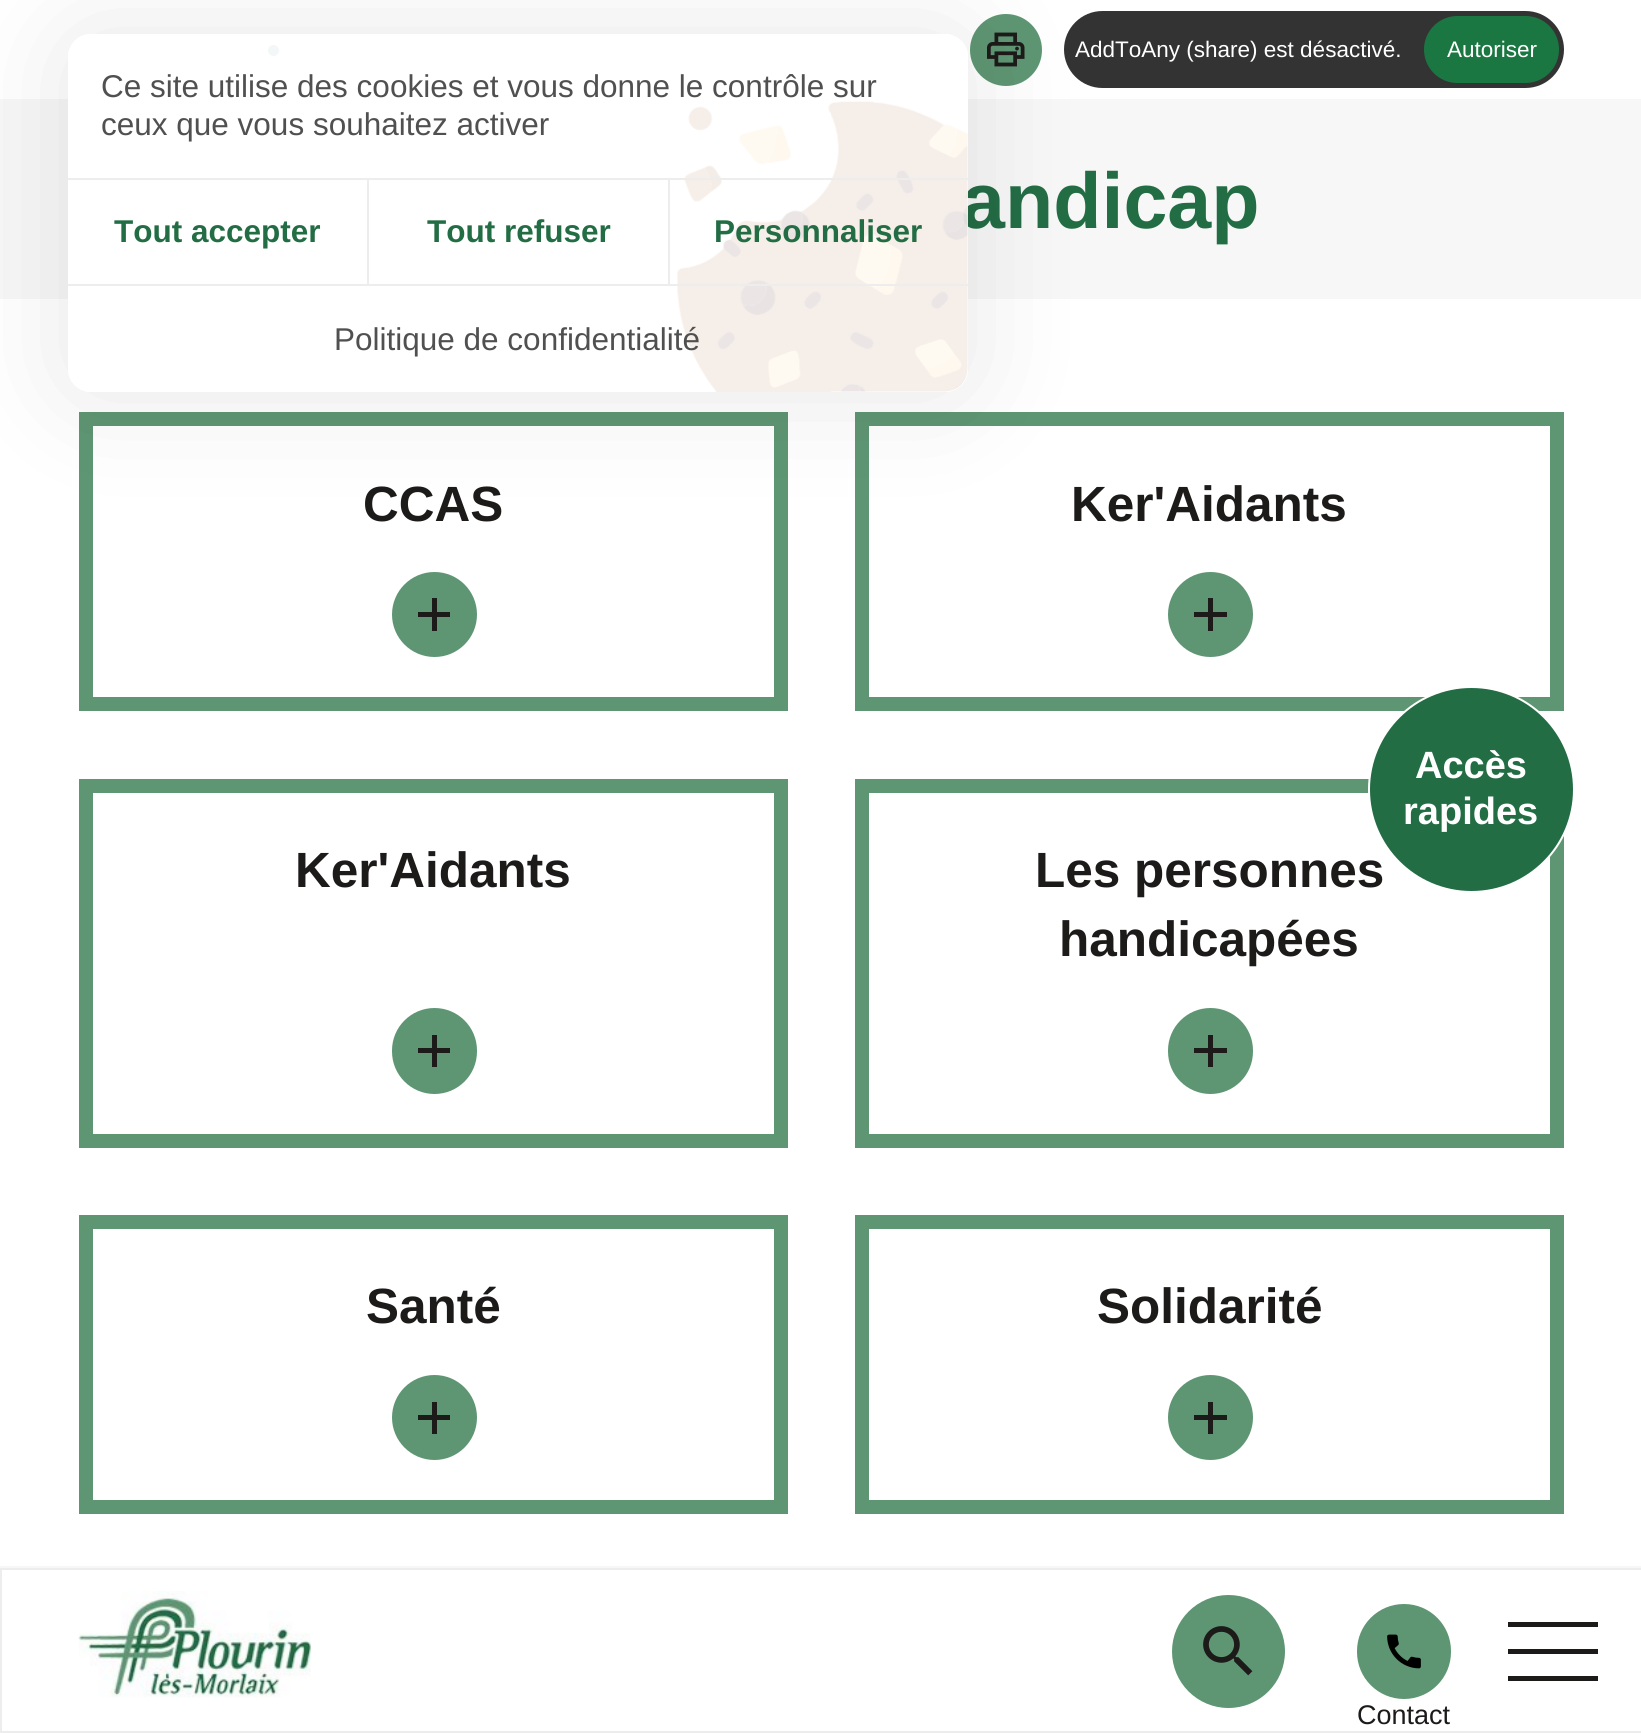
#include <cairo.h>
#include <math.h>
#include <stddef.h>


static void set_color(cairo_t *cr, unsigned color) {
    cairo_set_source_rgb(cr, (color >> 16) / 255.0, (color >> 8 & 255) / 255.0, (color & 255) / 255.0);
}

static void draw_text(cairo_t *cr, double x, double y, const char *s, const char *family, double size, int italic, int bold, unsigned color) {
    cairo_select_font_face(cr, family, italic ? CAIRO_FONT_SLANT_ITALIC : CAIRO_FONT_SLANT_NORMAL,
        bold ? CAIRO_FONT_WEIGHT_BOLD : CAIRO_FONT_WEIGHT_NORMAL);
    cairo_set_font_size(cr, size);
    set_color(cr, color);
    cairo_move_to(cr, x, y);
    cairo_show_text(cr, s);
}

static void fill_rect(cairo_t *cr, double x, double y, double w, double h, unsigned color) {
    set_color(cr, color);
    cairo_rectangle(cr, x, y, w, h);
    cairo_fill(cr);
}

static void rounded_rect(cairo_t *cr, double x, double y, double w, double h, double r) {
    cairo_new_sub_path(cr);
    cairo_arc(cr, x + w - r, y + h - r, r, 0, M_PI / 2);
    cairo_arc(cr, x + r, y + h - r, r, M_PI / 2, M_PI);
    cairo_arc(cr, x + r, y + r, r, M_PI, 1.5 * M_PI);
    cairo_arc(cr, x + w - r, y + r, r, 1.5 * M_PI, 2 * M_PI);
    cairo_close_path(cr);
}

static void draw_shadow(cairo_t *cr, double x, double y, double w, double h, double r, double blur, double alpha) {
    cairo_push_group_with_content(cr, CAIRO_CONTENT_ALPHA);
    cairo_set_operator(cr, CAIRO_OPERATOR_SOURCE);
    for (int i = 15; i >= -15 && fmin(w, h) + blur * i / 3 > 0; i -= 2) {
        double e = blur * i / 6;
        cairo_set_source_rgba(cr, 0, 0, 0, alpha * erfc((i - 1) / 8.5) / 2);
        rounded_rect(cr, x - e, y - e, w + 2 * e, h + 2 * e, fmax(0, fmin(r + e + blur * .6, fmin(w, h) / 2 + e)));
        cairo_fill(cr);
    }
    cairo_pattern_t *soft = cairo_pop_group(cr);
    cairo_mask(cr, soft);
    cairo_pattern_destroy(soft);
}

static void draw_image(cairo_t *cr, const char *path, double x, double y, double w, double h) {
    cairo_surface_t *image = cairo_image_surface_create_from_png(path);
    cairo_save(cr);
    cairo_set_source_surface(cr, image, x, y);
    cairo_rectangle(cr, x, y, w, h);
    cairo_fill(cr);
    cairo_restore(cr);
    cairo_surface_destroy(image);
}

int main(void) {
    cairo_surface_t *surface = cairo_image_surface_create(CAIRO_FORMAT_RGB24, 1641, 1733);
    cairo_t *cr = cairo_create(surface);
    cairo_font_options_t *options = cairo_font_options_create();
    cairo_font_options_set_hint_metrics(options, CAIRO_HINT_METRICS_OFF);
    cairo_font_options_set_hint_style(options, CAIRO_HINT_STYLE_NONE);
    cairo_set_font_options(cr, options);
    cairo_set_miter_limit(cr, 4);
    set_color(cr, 0xFFFFFF);
    cairo_paint(cr);
    set_color(cr, 0x075359);
    cairo_arc(cr, 273.5, 50.5, 5.5, 0, 2 * M_PI);
    cairo_fill(cr);
    set_color(cr, 0x5E9673);
    cairo_arc(cr, 1006, 50, 36, 0, 2 * M_PI);
    cairo_fill(cr);
    draw_image(cr, "assets/img1.png", 987, 32, 38, 35);
    set_color(cr, 0x333333);
    rounded_rect(cr, 1064, 11, 500, 77, 38.5);
    cairo_fill(cr);
    draw_text(cr, 1075, 57, "AddToAny (share) est désactivé.", "Liberation Sans", 22.5, 0, 0, 0xFFFFFF);
    set_color(cr, 0x1B7742);
    rounded_rect(cr, 1424, 16, 135, 67, 33.5);
    cairo_fill(cr);
    draw_text(cr, 1447, 57, "Autoriser", "Liberation Sans", 22.5, 0, 0, 0xFFFFFF);
    fill_rect(cr, 0, 99, 1641, 200, 0xF7F7F7);
    draw_text(cr, 961, 228, "andicap", "Liberation Sans", 79, 0, 1, 0x236D45);
    cairo_rectangle(cr, 86, 419, 695, 285);
    set_color(cr, 0x5E9673);
    cairo_set_line_width(cr, 14);
    cairo_stroke(cr);
    draw_text(cr, 363, 521, "CCAS", "Liberation Sans", 49.5, 0, 1, 0x1D1A1A);
    set_color(cr, 0x5E9673);
    cairo_new_path(cr);
    cairo_arc(cr, 434.5, 614.5, 42.5, 0, 2 * M_PI);
    cairo_fill(cr);
    fill_rect(cr, 418, 612, 32, 5, 0x1D1A1A);
    fill_rect(cr, 432, 598, 5, 33, 0x1D1A1A);
    cairo_rectangle(cr, 862, 419, 695, 285);
    set_color(cr, 0x5E9673);
    cairo_stroke(cr);
    draw_text(cr, 1071, 521, "Ker'Aidants", "Liberation Sans", 49.5, 0, 1, 0x1D1A1A);
    set_color(cr, 0x5E9673);
    cairo_new_path(cr);
    cairo_arc(cr, 1210.5, 614.5, 42.5, 0, 2 * M_PI);
    cairo_fill(cr);
    fill_rect(cr, 1194, 612, 33, 5, 0x1D1A1A);
    fill_rect(cr, 1208, 598, 5, 33, 0x1D1A1A);
    cairo_rectangle(cr, 86, 786, 695, 355);
    set_color(cr, 0x5E9673);
    cairo_stroke(cr);
    draw_text(cr, 295, 887, "Ker'Aidants", "Liberation Sans", 49.5, 0, 1, 0x1D1A1A);
    set_color(cr, 0x5E9673);
    rounded_rect(cr, 392, 1008, 85, 86, 42.5);
    cairo_fill(cr);
    fill_rect(cr, 418, 1048, 32, 5, 0x1D1A1A);
    fill_rect(cr, 432, 1035, 5, 32, 0x1D1A1A);
    cairo_rectangle(cr, 862, 786, 695, 355);
    set_color(cr, 0x5E9673);
    cairo_stroke(cr);
    draw_text(cr, 1035, 887, "Les personnes", "Liberation Sans", 49.5, 0, 1, 0x1D1A1A);
    draw_text(cr, 1059, 956, "handicapées", "Liberation Sans", 49.5, 0, 1, 0x1D1A1A);
    set_color(cr, 0x5E9673);
    rounded_rect(cr, 1168, 1008, 85, 86, 42.5);
    cairo_fill(cr);
    fill_rect(cr, 1194, 1048, 33, 5, 0x1D1A1A);
    fill_rect(cr, 1208, 1035, 5, 32, 0x1D1A1A);
    cairo_rectangle(cr, 86, 1222, 695, 285);
    set_color(cr, 0x5E9673);
    cairo_stroke(cr);
    draw_text(cr, 366, 1323, "Santé", "Liberation Sans", 49.5, 0, 1, 0x1D1A1A);
    set_color(cr, 0x5E9673);
    cairo_new_path(cr);
    cairo_arc(cr, 434.5, 1417.5, 42.5, 0, 2 * M_PI);
    cairo_fill(cr);
    fill_rect(cr, 418, 1415, 32, 5, 0x1D1A1A);
    fill_rect(cr, 432, 1402, 5, 32, 0x1D1A1A);
    cairo_rectangle(cr, 862, 1222, 695, 285);
    set_color(cr, 0x5E9673);
    cairo_stroke(cr);
    draw_text(cr, 1097, 1323, "Solidarité", "Liberation Sans", 49.5, 0, 1, 0x1D1A1A);
    set_color(cr, 0x5E9673);
    cairo_new_path(cr);
    cairo_arc(cr, 1210.5, 1417.5, 42.5, 0, 2 * M_PI);
    cairo_fill(cr);
    fill_rect(cr, 1194, 1415, 33, 5, 0x1D1A1A);
    fill_rect(cr, 1208, 1402, 5, 32, 0x1D1A1A);
    set_color(cr, 0x236D45);
    cairo_arc(cr, 1471.5, 789.5, 102.5, 0, 2 * M_PI);
    cairo_fill_preserve(cr);
    set_color(cr, 0xFFFFFF);
    cairo_set_line_width(cr, 2);
    cairo_stroke(cr);
    draw_text(cr, 1415, 778, "Accès", "Liberation Sans", 38, 0, 1, 0xFFFFFF);
    draw_text(cr, 1403, 824, "rapides", "Liberation Sans", 38, 0, 1, 0xFFFFFF);
    cairo_rectangle(cr, 1, 1569, 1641, 163);
    set_color(cr, 0xEDEDED);
    cairo_stroke(cr);
    fill_rect(cr, 0, 1566, 1641, 2, 0xF7F7F7);
    draw_image(cr, "assets/img2.png", 78, 1591, 233, 107);
    fill_rect(cr, 1508, 1649, 90, 5, 0x1D1A1A);
    fill_rect(cr, 1508, 1622, 90, 5, 0x1D1A1A);
    fill_rect(cr, 1508, 1676, 90, 5, 0x1D1A1A);
    set_color(cr, 0x5E9673);
    cairo_arc(cr, 1228.5, 1651.5, 56.5, 0, 2 * M_PI);
    cairo_fill(cr);
    draw_image(cr, "assets/img3.png", 1203, 1626, 50, 50);
    rounded_rect(cr, 1357, 1604, 94, 95, 47);
    cairo_fill(cr);
    draw_image(cr, "assets/img4.png", 1387, 1634, 34, 35);
    draw_text(cr, 1357, 1724, "Contact", "Liberation Sans", 27, 0, 0, 0x1D1A1A);
    cairo_save(cr);
    cairo_set_fill_rule(cr, CAIRO_FILL_RULE_EVEN_ODD);
    cairo_new_path(cr);
    cairo_move_to(cr, 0, 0);
    cairo_line_to(cr, 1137, 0);
    cairo_line_to(cr, 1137, 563);
    cairo_line_to(cr, 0, 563);
    cairo_close_path(cr);
    cairo_move_to(cr, 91, 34);
    cairo_line_to(cr, 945, 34);
    cairo_curve_to(cr, 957.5, 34, 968, 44.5, 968, 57);
    cairo_line_to(cr, 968, 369);
    cairo_curve_to(cr, 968, 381.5, 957.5, 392, 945, 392);
    cairo_line_to(cr, 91, 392);
    cairo_curve_to(cr, 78.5, 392, 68, 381.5, 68, 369);
    cairo_line_to(cr, 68, 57);
    cairo_curve_to(cr, 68, 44.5, 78.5, 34, 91, 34);
    cairo_close_path(cr);
    cairo_clip(cr);
    set_color(cr, 0x000000);
    draw_shadow(cr, 68, 36, 900, 358, 23, 56, 0.1);
    cairo_restore(cr);
    cairo_set_source_rgba(cr, 1, 1, 1, 0.95);
    rounded_rect(cr, 68, 34, 900, 358, 23);
    cairo_fill(cr);
    draw_image(cr, "assets/img5.png", 677, 101, 291, 291);
    fill_rect(cr, 68, 178, 900, 2, 0xEDEDED);
    draw_text(cr, 101, 97, "Ce site utilise des cookies et vous donne le contrôle sur", "Liberation Sans", 31.5, 0, 0, 0x505050);
    draw_text(cr, 101, 135, "ceux que vous souhaitez activer", "Liberation Sans", 31.5, 0, 0, 0x505050);
    fill_rect(cr, 367, 180, 2, 104, 0xEDEDED);
    draw_text(cr, 427, 242, "Tout refuser", "Liberation Sans", 31.5, 0, 1, 0x236D45);
    draw_text(cr, 114, 242, "Tout accepter", "Liberation Sans", 31.5, 0, 1, 0x236D45);
    fill_rect(cr, 668, 180, 2, 104, 0xEDEDED);
    draw_text(cr, 714, 242, "Personnaliser", "Liberation Sans", 31.5, 0, 1, 0x236D45);
    fill_rect(cr, 68, 284, 900, 2, 0xEDEDED);
    draw_text(cr, 334, 350, "Politique de confidentialité", "Liberation Sans", 31.5, 0, 0, 0x505050);
    cairo_surface_write_to_png(surface, "output.png");
    cairo_font_options_destroy(options);
    cairo_destroy(cr);
    cairo_surface_destroy(surface);
    return 0;
}
